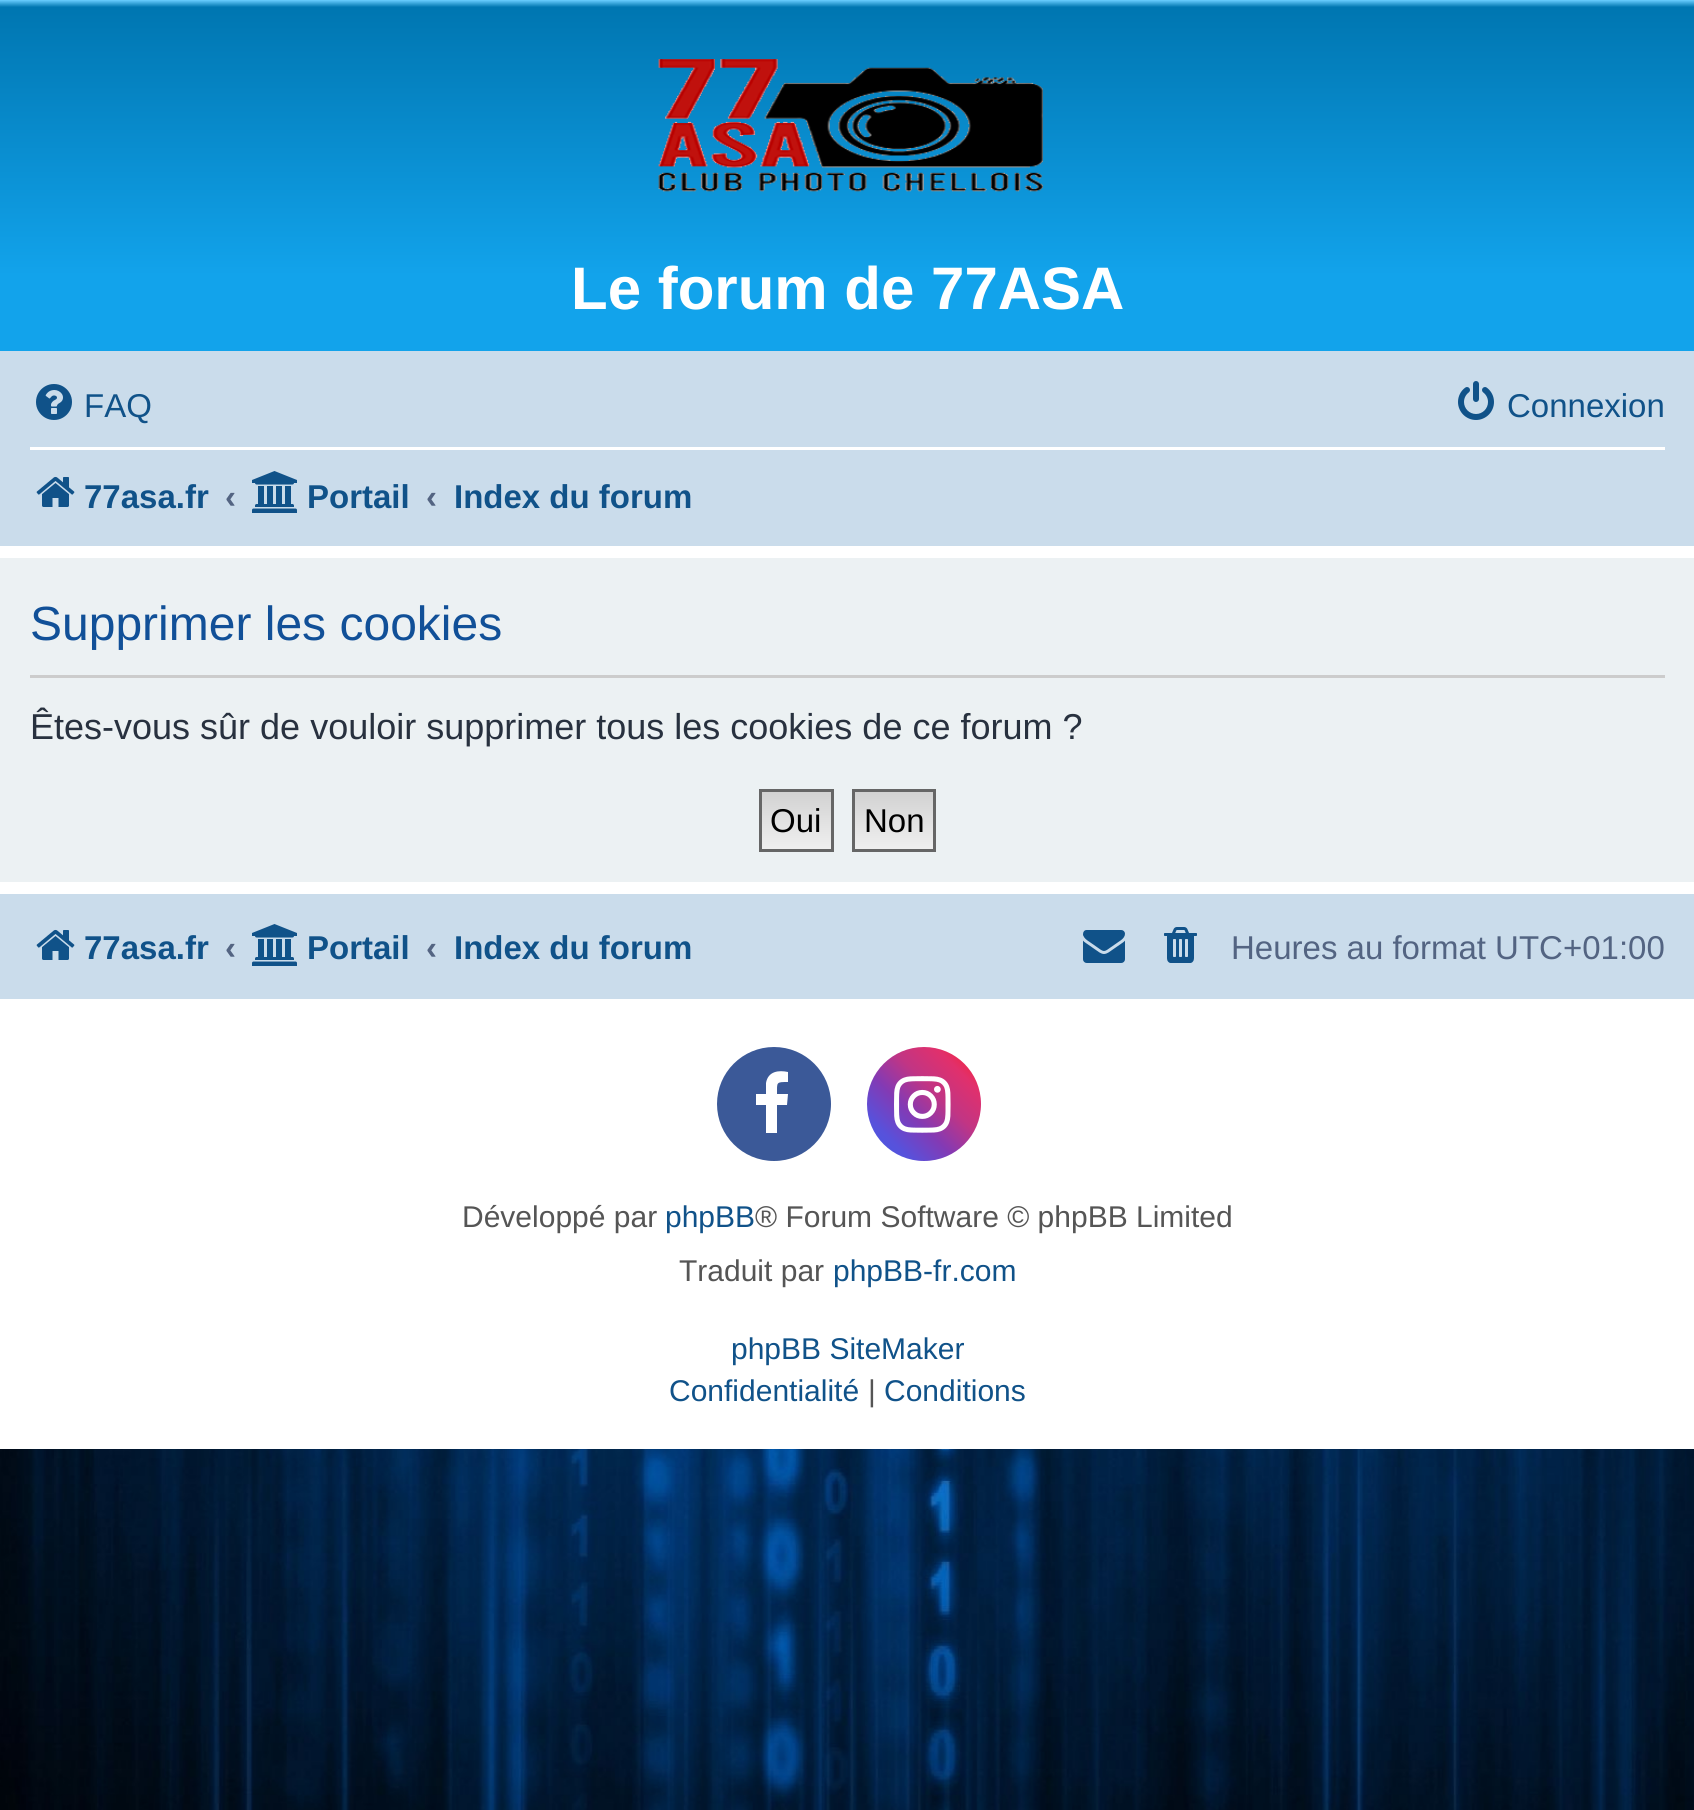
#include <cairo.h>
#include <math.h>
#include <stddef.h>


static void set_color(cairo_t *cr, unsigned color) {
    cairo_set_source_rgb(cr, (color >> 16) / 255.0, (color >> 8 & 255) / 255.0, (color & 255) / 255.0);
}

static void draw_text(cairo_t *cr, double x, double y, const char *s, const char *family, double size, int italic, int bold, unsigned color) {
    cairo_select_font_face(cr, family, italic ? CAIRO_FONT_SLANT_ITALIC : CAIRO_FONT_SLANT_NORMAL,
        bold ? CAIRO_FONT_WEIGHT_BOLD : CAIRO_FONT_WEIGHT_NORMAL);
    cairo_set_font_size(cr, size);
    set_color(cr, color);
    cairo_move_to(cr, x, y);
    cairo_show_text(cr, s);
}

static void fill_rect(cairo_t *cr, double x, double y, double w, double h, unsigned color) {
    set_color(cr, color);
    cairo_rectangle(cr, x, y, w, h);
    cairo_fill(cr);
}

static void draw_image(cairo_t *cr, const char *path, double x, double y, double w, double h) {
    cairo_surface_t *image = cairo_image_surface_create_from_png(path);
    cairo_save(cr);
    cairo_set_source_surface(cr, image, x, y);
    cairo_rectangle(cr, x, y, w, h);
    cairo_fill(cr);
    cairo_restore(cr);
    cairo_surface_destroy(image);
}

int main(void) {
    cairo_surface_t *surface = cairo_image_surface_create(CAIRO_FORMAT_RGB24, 1694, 1810);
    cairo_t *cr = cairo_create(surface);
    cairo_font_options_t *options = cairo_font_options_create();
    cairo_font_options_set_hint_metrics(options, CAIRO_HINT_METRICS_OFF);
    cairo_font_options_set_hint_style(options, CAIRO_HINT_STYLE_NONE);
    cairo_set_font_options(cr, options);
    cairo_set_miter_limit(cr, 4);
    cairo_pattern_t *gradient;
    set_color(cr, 0xFFFFFF);
    cairo_paint(cr);
    draw_image(cr, "assets/img1.png", 0, 1449, 1694, 361);
    gradient = cairo_pattern_create_linear(848, 0, 848, 354);
    cairo_pattern_add_color_stop_rgba(gradient, 0, 0.416, 0.808, 1, 1);
    cairo_pattern_add_color_stop_rgba(gradient, 0.02, 0, 0.463, 0.694, 1);
    cairo_pattern_add_color_stop_rgba(gradient, 0.78, 0.071, 0.639, 0.922, 1);
    cairo_pattern_add_color_stop_rgba(gradient, 1, 0.071, 0.639, 0.922, 1);
    cairo_set_source(cr, gradient);
    cairo_pattern_destroy(gradient);
    cairo_rectangle(cr, 0, 0, 1694, 351);
    cairo_fill(cr);
    draw_image(cr, "assets/img2.png", 658, 59, 385, 133);
    draw_text(cr, 571, 309, "Le forum de 77ASA", "Liberation Sans", 60, 0, 1, 0xFFFFFF);
    fill_rect(cr, 0, 351, 1694, 195, 0xCADCEB);
    draw_image(cr, "assets/img3.png", 36, 384, 36, 36);
    draw_text(cr, 84, 417, "FAQ", "Liberation Sans", 33, 0, 0, 0x105289);
    draw_image(cr, "assets/img4.png", 1458, 381, 36, 39);
    draw_text(cr, 1507, 417, "Connexion", "Liberation Sans", 33, 0, 0, 0x105289);
    fill_rect(cr, 30, 447, 1635, 3, 0xFFFFFF);
    draw_image(cr, "assets/img5.png", 36, 476, 39, 31);
    draw_text(cr, 84, 508, "77asa.fr", "Liberation Sans", 33, 0, 1, 0x105289);
    draw_text(cr, 225, 508, "‹", "Liberation Sans", 33, 0, 1, 0x536482);
    draw_image(cr, "assets/img6.png", 252, 471, 45, 42);
    draw_text(cr, 307, 508, "Portail", "Liberation Sans", 33, 0, 1, 0x105289);
    draw_text(cr, 426, 508, "‹", "Liberation Sans", 33, 0, 1, 0x536482);
    draw_text(cr, 454, 508, "Index du forum", "Liberation Sans", 33, 0, 1, 0x105289);
    fill_rect(cr, 0, 558, 1694, 324, 0xECF1F3);
    fill_rect(cr, 30, 675, 1635, 3, 0xCCCCCC);
    draw_text(cr, 30, 640, "Supprimer les cookies", "Liberation Sans", 48, 0, 0, 0x115098);
    draw_text(cr, 30, 739, "Êtes-vous sûr de vouloir supprimer tous les cookies de ce forum ?", "Liberation Sans", 36, 0, 0, 0x28313F);
    gradient = cairo_pattern_create_linear(797, 792, 797, 849);
    cairo_pattern_add_color_stop_rgba(gradient, 0, 0.824, 0.824, 0.824, 1);
    cairo_pattern_add_color_stop_rgba(gradient, 1, 0.937, 0.937, 0.937, 1);
    cairo_set_source(cr, gradient);
    cairo_pattern_destroy(gradient);
    cairo_rectangle(cr, 762, 792, 69, 57);
    cairo_fill(cr);
    cairo_rectangle(cr, 760.5, 790.5, 72, 60);
    set_color(cr, 0x666666);
    cairo_set_line_width(cr, 3);
    cairo_stroke(cr);
    draw_text(cr, 770, 832, "Oui", "Liberation Sans", 33, 0, 0, 0x000000);
    gradient = cairo_pattern_create_linear(894, 792, 894, 849);
    cairo_pattern_add_color_stop_rgba(gradient, 0, 0.824, 0.824, 0.824, 1);
    cairo_pattern_add_color_stop_rgba(gradient, 1, 0.937, 0.937, 0.937, 1);
    cairo_set_source(cr, gradient);
    cairo_pattern_destroy(gradient);
    cairo_rectangle(cr, 855, 792, 78, 57);
    cairo_fill(cr);
    cairo_rectangle(cr, 853.5, 790.5, 81, 60);
    set_color(cr, 0x666666);
    cairo_stroke(cr);
    draw_text(cr, 864, 832, "Non", "Liberation Sans", 33, 0, 0, 0x000000);
    fill_rect(cr, 0, 894, 1694, 105, 0xCADCEB);
    draw_image(cr, "assets/img5.png", 36, 929, 39, 31);
    draw_text(cr, 84, 959, "77asa.fr", "Liberation Sans", 33, 0, 1, 0x105289);
    draw_text(cr, 225, 959, "‹", "Liberation Sans", 33, 0, 1, 0x536482);
    draw_image(cr, "assets/img6.png", 252, 924, 45, 42);
    draw_text(cr, 307, 959, "Portail", "Liberation Sans", 33, 0, 1, 0x105289);
    draw_text(cr, 426, 959, "‹", "Liberation Sans", 33, 0, 1, 0x536482);
    draw_text(cr, 454, 959, "Index du forum", "Liberation Sans", 33, 0, 1, 0x105289);
    draw_image(cr, "assets/img7.png", 1083, 930, 42, 33);
    draw_image(cr, "assets/img8.png", 1164, 927, 33, 36);
    draw_text(cr, 1231, 959, "Heures au format UTC+01:00", "Liberation Sans", 33, 0, 0, 0x536482);
    set_color(cr, 0x3B5998);
    cairo_new_path(cr);
    cairo_arc(cr, 774, 1104, 57, 0, 2 * M_PI);
    cairo_fill(cr);
    set_color(cr, 0xFFFFFF);
    cairo_new_path(cr);
    cairo_move_to(cr, 788, 1072);
    cairo_line_to(cr, 788, 1082);
    cairo_curve_to(cr, 776, 1082, 777, 1082, 777, 1094);
    cairo_line_to(cr, 788, 1094);
    cairo_line_to(cr, 787, 1105);
    cairo_line_to(cr, 777, 1105);
    cairo_line_to(cr, 777, 1133);
    cairo_line_to(cr, 766, 1133);
    cairo_line_to(cr, 766, 1105);
    cairo_line_to(cr, 756, 1105);
    cairo_line_to(cr, 756, 1094);
    cairo_line_to(cr, 766, 1094);
    cairo_line_to(cr, 766, 1083);
    cairo_curve_to(cr, 768, 1071, 779, 1070, 788, 1072);
    cairo_close_path(cr);
    cairo_fill(cr);
    gradient = cairo_pattern_create_linear(867, 1161, 981, 1047);
    cairo_pattern_add_color_stop_rgba(gradient, 0, 0.251, 0.365, 0.902, 1);
    cairo_pattern_add_color_stop_rgba(gradient, 0.2, 0.345, 0.318, 0.859, 1);
    cairo_pattern_add_color_stop_rgba(gradient, 0.4, 0.514, 0.227, 0.706, 1);
    cairo_pattern_add_color_stop_rgba(gradient, 0.6, 0.757, 0.208, 0.518, 1);
    cairo_pattern_add_color_stop_rgba(gradient, 0.8, 0.882, 0.188, 0.424, 1);
    cairo_pattern_add_color_stop_rgba(gradient, 1, 0.992, 0.114, 0.114, 1);
    cairo_set_source(cr, gradient);
    cairo_pattern_destroy(gradient);
    cairo_arc(cr, 924, 1104, 57, 0, 2 * M_PI);
    cairo_fill(cr);
    draw_image(cr, "assets/img9.png", 894, 1076, 57, 57);
    draw_text(cr, 462, 1227, "Développé par", "Liberation Sans", 30, 0, 0, 0x555555);
    draw_text(cr, 665, 1227, "phpBB", "Liberation Sans", 30, 0, 0, 0x105289);
    draw_text(cr, 755, 1227, "® Forum Software © phpBB Limited", "Liberation Sans", 30, 0, 0, 0x555555);
    draw_text(cr, 679, 1281, "Traduit par", "Liberation Sans", 30, 0, 0, 0x555555);
    draw_text(cr, 833, 1281, "phpBB-fr.com", "Liberation Sans", 30, 0, 0, 0x105289);
    draw_text(cr, 731, 1359, "phpBB SiteMaker", "Liberation Sans", 30, 0, 0, 0x105289);
    draw_text(cr, 669, 1401, "Confidentialité", "Liberation Sans", 30, 0, 0, 0x105289);
    draw_text(cr, 868, 1401, "|", "Liberation Sans", 30, 0, 0, 0x555555);
    draw_text(cr, 884, 1401, "Conditions", "Liberation Sans", 30, 0, 0, 0x105289);
    cairo_surface_write_to_png(surface, "output.png");
    cairo_font_options_destroy(options);
    cairo_destroy(cr);
    cairo_surface_destroy(surface);
    return 0;
}
